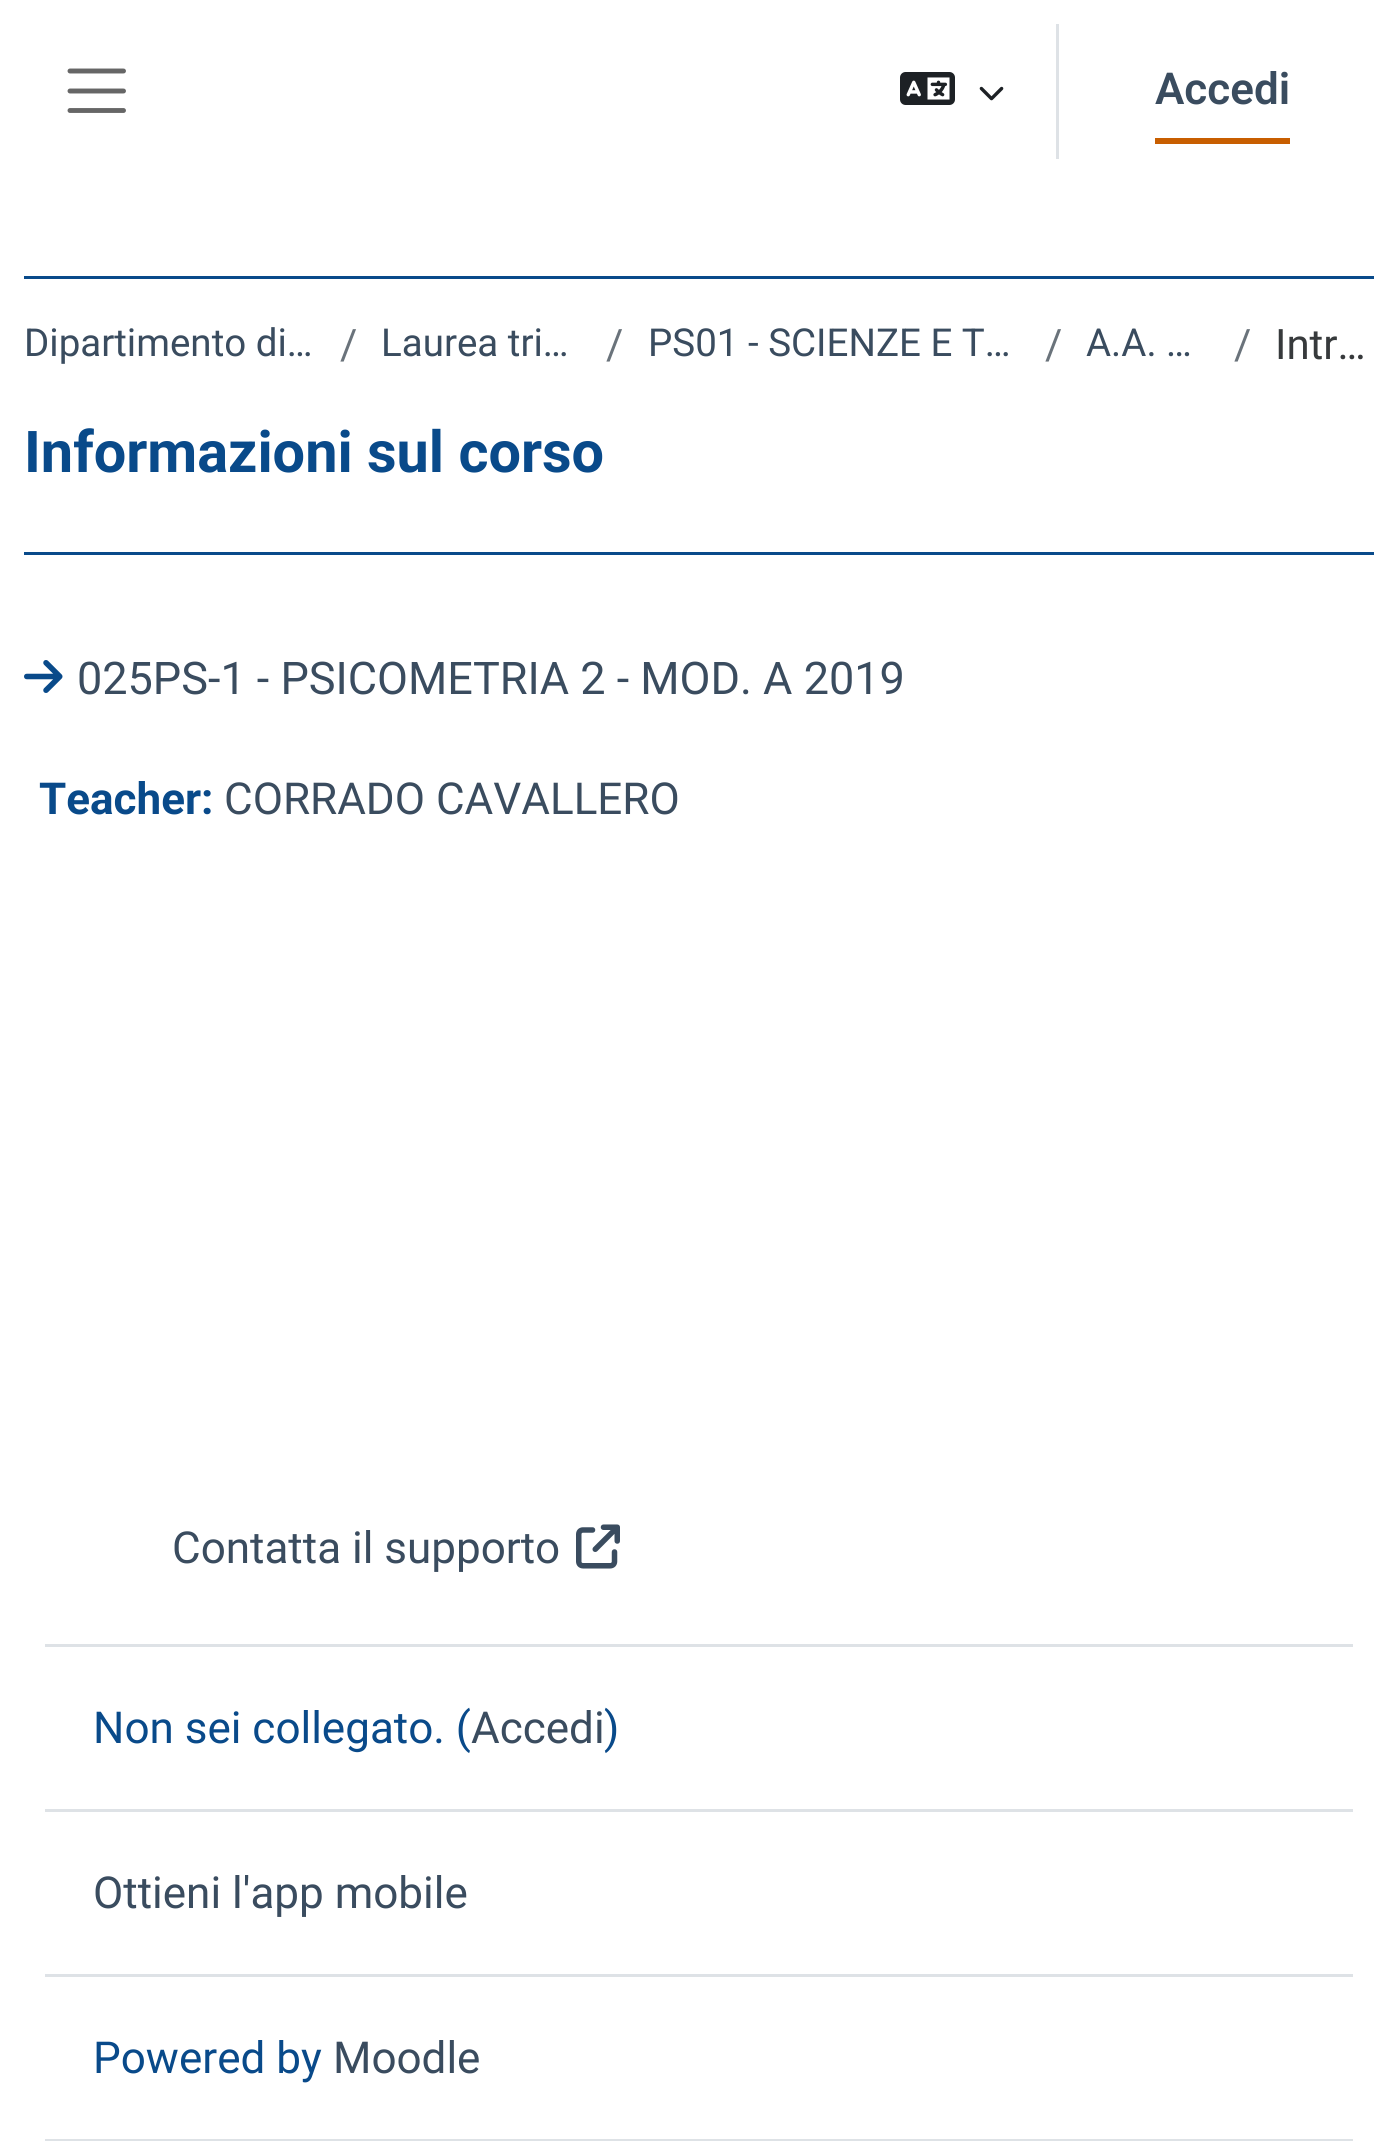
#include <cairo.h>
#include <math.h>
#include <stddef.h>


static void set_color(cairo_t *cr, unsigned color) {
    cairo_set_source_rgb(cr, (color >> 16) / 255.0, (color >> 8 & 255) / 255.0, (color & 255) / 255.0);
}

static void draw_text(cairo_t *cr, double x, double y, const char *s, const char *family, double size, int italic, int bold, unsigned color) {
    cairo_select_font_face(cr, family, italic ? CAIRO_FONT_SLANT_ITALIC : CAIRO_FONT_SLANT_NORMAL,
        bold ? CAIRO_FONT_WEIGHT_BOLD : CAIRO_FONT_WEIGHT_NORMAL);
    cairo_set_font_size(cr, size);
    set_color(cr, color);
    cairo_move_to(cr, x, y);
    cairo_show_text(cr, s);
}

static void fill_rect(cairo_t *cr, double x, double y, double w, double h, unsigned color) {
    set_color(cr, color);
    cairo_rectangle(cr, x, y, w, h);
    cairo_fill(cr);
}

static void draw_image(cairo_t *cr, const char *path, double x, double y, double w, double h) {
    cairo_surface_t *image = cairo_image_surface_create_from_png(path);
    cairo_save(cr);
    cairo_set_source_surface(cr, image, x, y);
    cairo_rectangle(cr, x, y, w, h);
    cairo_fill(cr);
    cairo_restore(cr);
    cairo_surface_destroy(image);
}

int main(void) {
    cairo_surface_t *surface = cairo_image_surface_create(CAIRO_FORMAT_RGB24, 1398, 2141);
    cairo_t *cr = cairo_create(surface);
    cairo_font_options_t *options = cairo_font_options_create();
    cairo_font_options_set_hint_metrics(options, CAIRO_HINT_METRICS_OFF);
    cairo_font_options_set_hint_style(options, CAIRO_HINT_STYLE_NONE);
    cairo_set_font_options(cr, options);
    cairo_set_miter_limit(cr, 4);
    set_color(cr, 0xFFFFFF);
    cairo_paint(cr);
    cairo_new_path(cr);
    cairo_move_to(cr, 70, 71);
    cairo_line_to(cr, 123.5, 71);
    cairo_move_to(cr, 70, 91);
    cairo_line_to(cr, 123.5, 91);
    cairo_move_to(cr, 70, 110.5);
    cairo_line_to(cr, 123.5, 110.5);
    set_color(cr, 0x666666);
    cairo_set_line_width(cr, 4.9);
    cairo_set_line_cap(cr, CAIRO_LINE_CAP_ROUND);
    cairo_stroke(cr);
    draw_image(cr, "assets/img1.png", 900, 72, 55, 33);
    draw_image(cr, "assets/img2.png", 979, 86, 25, 15);
    fill_rect(cr, 1056, 24, 3, 135, 0xDEE2E6);
    fill_rect(cr, 1155, 138, 135, 6, 0xC85E00);
    draw_text(cr, 1155, 104, "Accedi", "Roboto SemiBold", 44, 0, 0, 0x3A4C5F);
    fill_rect(cr, 24, 276, 1350, 3, 0x094A8A);
    fill_rect(cr, 24, 552, 1350, 3, 0x094A8A);
    draw_text(cr, 24, 356, "Dipartimento di…", "Roboto", 38.5, 0, 0, 0x3A4C5F);
    draw_text(cr, 340, 359, "/", "Roboto", 42, 0, 0, 0x6A737B);
    draw_text(cr, 381, 356, "Laurea tri…", "Roboto", 38.5, 0, 0, 0x3A4C5F);
    draw_text(cr, 606, 359, "/", "Roboto", 42, 0, 0, 0x6A737B);
    draw_text(cr, 648, 356, "PS01 - SCIENZE E T…", "Roboto", 38.5, 0, 0, 0x3A4C5F);
    draw_text(cr, 1045, 359, "/", "Roboto", 42, 0, 0, 0x6A737B);
    draw_text(cr, 1086, 356, "A.A. …", "Roboto", 38.5, 0, 0, 0x3A4C5F);
    draw_text(cr, 1234, 359, "/", "Roboto", 42, 0, 0, 0x6A737B);
    draw_text(cr, 1275, 359, "Intr…", "Roboto", 42, 0, 0, 0x373A3C);
    draw_text(cr, 24, 472, "Informazioni sul corso", "Roboto", 57.6, 0, 1, 0x094A8A);
    draw_image(cr, "assets/img3.png", 24, 660, 39, 33);
    draw_text(cr, 77, 694, "025PS-1 - PSICOMETRIA 2 - MOD. A 2019", "Roboto", 45, 0, 0, 0x3A4C5F);
    draw_text(cr, 39, 814, "Teacher:", "Roboto", 44, 0, 1, 0x094A8A);
    draw_text(cr, 224, 814, "CORRADO CAVALLERO", "Roboto", 44, 0, 0, 0x3A4C5F);
    fill_rect(cr, 45, 1644, 1308, 3, 0xDEE2E6);
    draw_text(cr, 172, 1563, "Contatta il supporto", "Roboto", 44, 0, 0, 0x3A4C5F);
    draw_image(cr, "assets/img4.png", 576, 1524, 44, 45);
    fill_rect(cr, 45, 1809, 1308, 3, 0xDEE2E6);
    draw_text(cr, 93, 1743, "Non sei collegato. (", "Roboto", 44, 0, 0, 0x094A8A);
    draw_text(cr, 471, 1743, "Accedi", "Roboto", 44, 0, 0, 0x3A4C5F);
    draw_text(cr, 604, 1743, ")", "Roboto", 44, 0, 0, 0x094A8A);
    fill_rect(cr, 45, 1974, 1308, 3, 0xDEE2E6);
    draw_text(cr, 93, 1908, "Ottieni l'app mobile", "Roboto", 44, 0, 0, 0x3A4C5F);
    fill_rect(cr, 45, 2139, 1308, 2, 0xDEE2E6);
    draw_text(cr, 93, 2073, "Powered by", "Roboto", 44, 0, 0, 0x094A8A);
    draw_text(cr, 333, 2073, "Moodle", "Roboto", 44, 0, 0, 0x3A4C5F);
    cairo_surface_write_to_png(surface, "output.png");
    cairo_font_options_destroy(options);
    cairo_destroy(cr);
    cairo_surface_destroy(surface);
    return 0;
}
